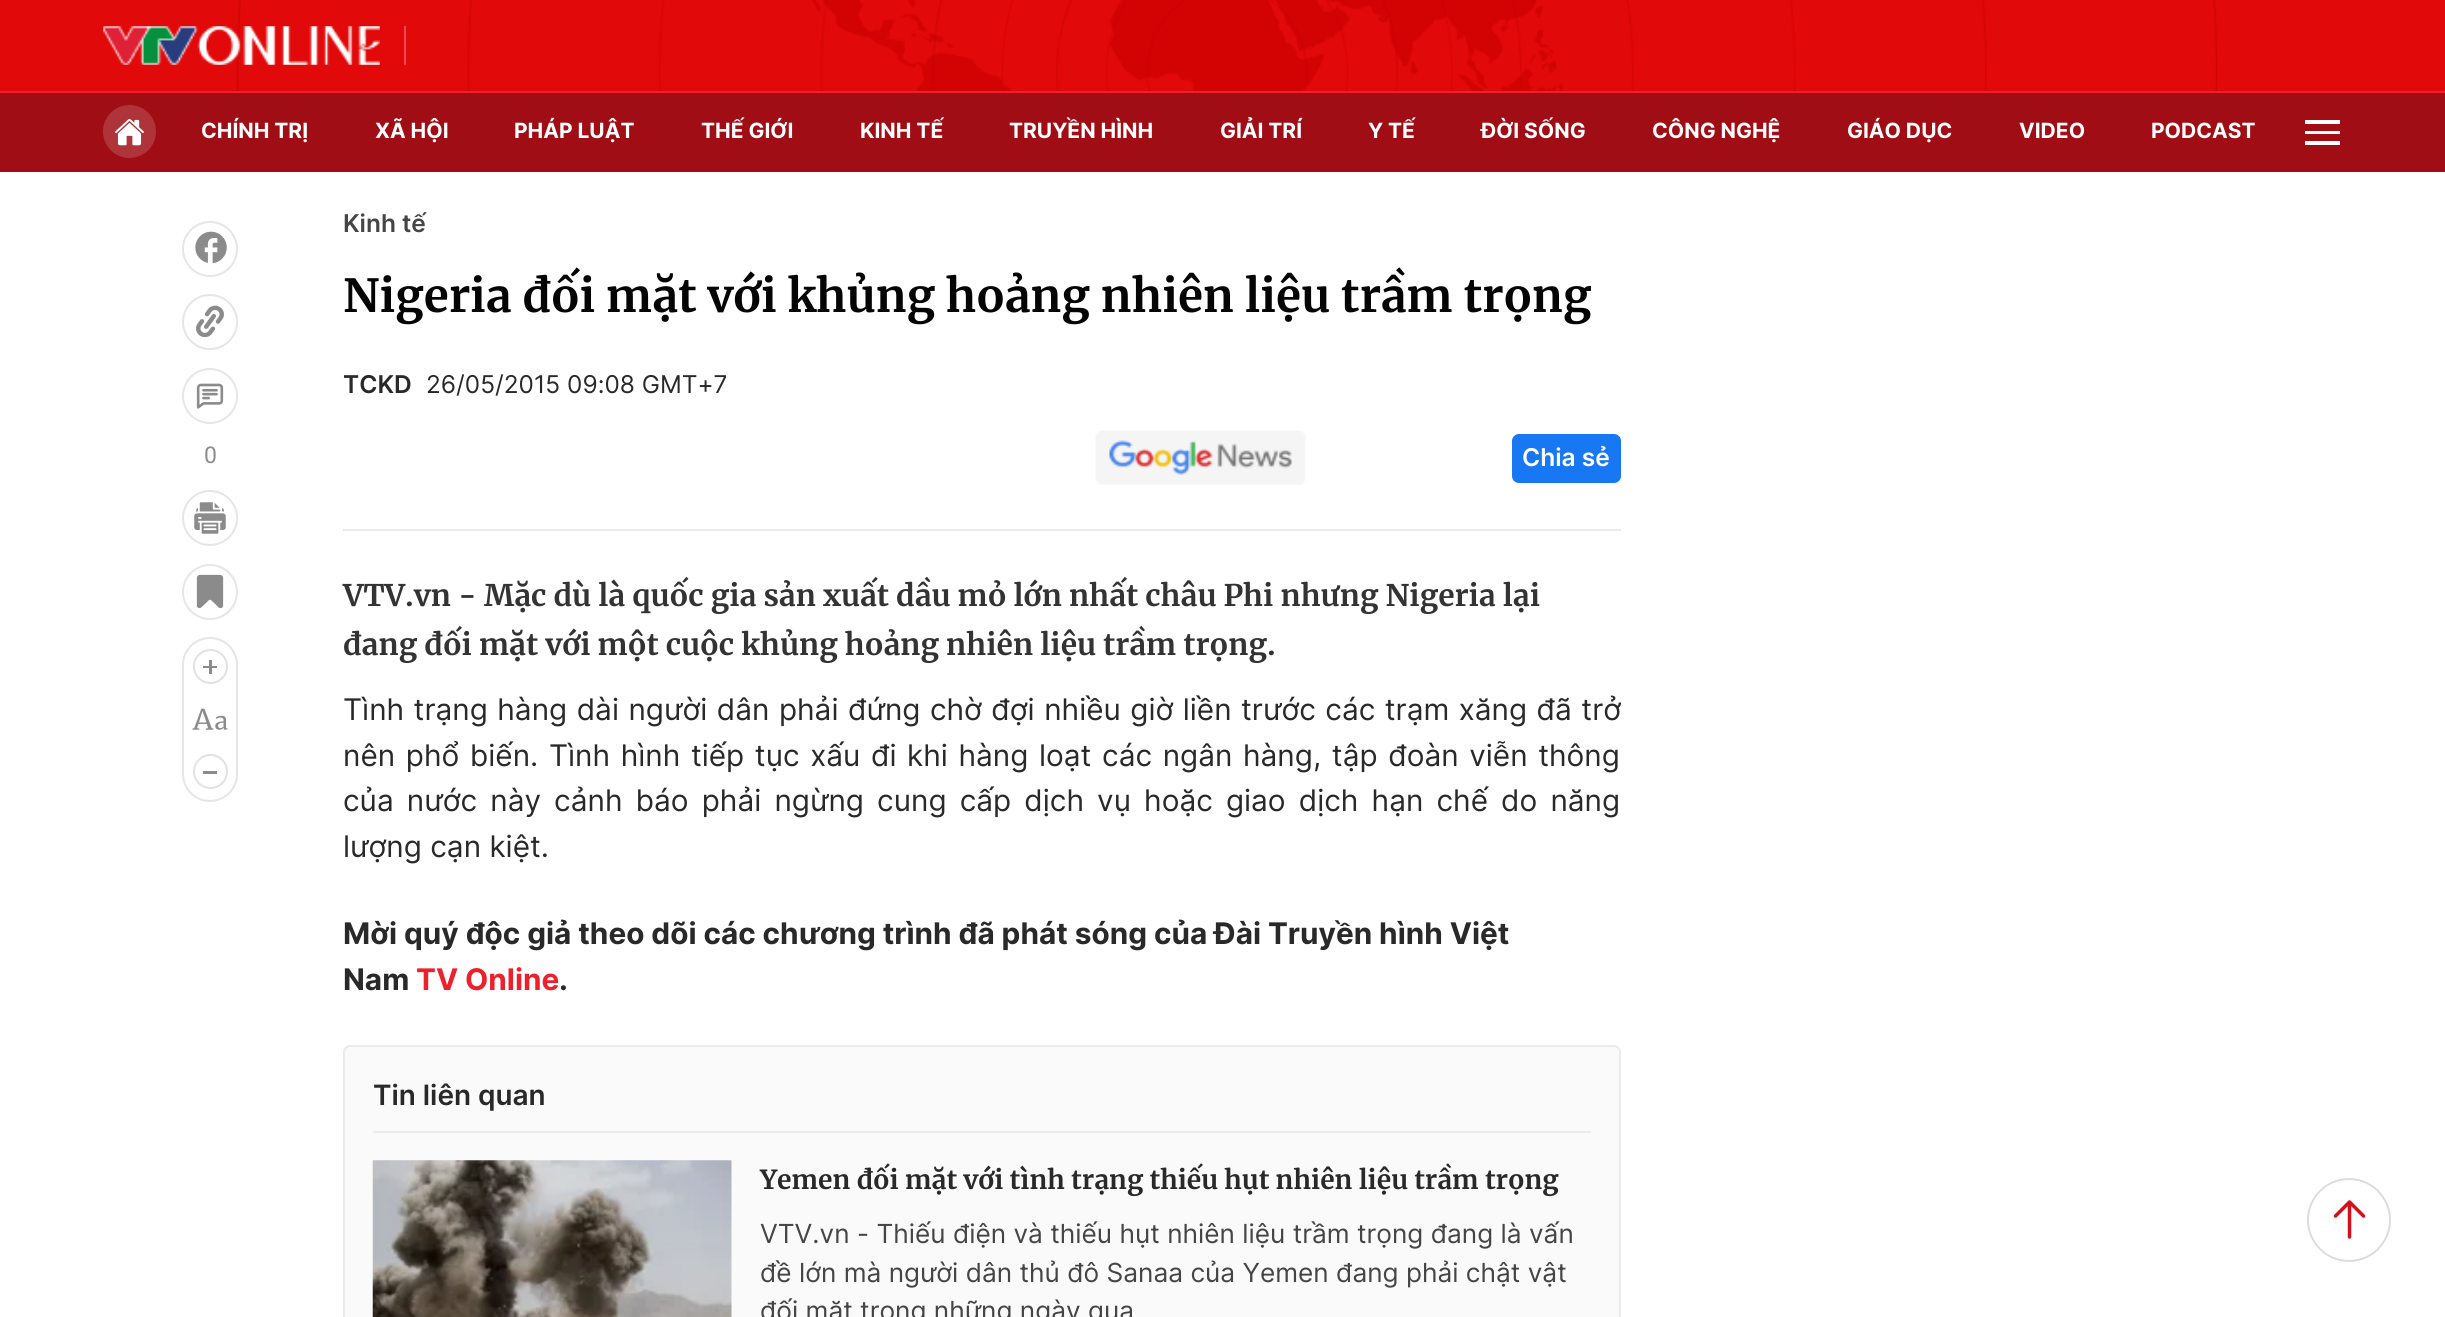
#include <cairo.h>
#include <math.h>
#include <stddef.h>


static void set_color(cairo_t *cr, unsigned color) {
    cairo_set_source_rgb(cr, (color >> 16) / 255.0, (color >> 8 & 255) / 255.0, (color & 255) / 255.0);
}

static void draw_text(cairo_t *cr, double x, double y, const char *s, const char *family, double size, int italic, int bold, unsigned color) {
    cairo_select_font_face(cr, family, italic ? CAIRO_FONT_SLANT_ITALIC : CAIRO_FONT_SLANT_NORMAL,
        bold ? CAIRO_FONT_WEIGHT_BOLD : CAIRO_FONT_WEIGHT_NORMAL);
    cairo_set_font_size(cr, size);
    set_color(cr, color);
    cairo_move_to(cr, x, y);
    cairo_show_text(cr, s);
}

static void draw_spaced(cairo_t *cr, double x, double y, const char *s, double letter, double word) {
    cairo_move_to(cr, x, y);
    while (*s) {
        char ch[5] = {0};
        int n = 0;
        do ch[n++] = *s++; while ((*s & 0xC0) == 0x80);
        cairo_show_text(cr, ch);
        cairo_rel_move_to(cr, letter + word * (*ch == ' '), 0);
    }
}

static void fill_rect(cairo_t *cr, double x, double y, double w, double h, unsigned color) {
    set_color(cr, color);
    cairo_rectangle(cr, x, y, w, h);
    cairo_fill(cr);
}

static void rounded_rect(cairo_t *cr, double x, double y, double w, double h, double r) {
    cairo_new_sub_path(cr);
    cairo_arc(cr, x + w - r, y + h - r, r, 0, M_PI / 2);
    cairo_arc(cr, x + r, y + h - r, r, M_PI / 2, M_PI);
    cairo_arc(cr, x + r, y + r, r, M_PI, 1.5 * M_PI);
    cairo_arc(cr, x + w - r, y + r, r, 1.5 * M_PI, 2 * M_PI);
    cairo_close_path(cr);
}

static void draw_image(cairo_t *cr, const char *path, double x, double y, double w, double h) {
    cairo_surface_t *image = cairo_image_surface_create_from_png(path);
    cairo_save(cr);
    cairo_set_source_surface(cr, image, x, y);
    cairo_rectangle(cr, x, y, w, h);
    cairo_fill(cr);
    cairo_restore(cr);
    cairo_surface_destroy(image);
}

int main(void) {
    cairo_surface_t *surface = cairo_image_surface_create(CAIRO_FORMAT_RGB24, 2445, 1317);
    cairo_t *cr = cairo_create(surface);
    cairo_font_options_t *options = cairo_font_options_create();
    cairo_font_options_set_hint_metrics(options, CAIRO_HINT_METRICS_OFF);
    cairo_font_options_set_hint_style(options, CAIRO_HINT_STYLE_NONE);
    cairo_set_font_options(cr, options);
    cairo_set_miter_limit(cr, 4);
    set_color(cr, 0xFFFFFF);
    cairo_paint(cr);
    draw_image(cr, "assets/img1.png", 0, 0, 2445, 91);
    draw_image(cr, "assets/img2.png", 103, 26, 277, 39);
    fill_rect(cr, 404, 26, 2, 39, 0xF0464F);
    fill_rect(cr, 0, 93, 2445, 79, 0xA00D14);
    fill_rect(cr, 0, 91, 2445, 2, 0xED212B);
    set_color(cr, 0xAF343A);
    cairo_arc(cr, 129.5, 131.5, 26.5, 0, 2 * M_PI);
    cairo_fill(cr);
    draw_image(cr, "assets/img3.png", 115, 119, 29, 27);
    draw_text(cr, 201, 138, "CHÍNH TRỊ", "Inter", 21, 0, 1, 0xFFFFFF);
    draw_text(cr, 375, 138, "XÃ HỘI", "Inter", 21, 0, 1, 0xFFFFFF);
    draw_text(cr, 514, 138, "PHÁP LUẬT", "Inter", 21, 0, 1, 0xFFFFFF);
    draw_text(cr, 701, 138, "THẾ GIỚI", "Inter", 21, 0, 1, 0xFFFFFF);
    draw_text(cr, 860, 138, "KINH TẾ", "Inter", 21, 0, 1, 0xFFFFFF);
    draw_text(cr, 1009, 138, "TRUYỀN HÌNH", "Inter", 21, 0, 1, 0xFFFFFF);
    draw_text(cr, 1220, 138, "GIẢI TRÍ", "Inter", 21, 0, 1, 0xFFFFFF);
    draw_text(cr, 1368, 138, "Y TẾ", "Inter", 21, 0, 1, 0xFFFFFF);
    draw_text(cr, 1481, 138, "ĐỜI SỐNG", "Inter", 21, 0, 1, 0xFFFFFF);
    draw_text(cr, 1652, 138, "CÔNG NGHỆ", "Inter", 21, 0, 1, 0xFFFFFF);
    draw_text(cr, 1847, 138, "GIÁO DỤC", "Inter", 21, 0, 1, 0xFFFFFF);
    draw_text(cr, 2019, 138, "VIDEO", "Inter", 21, 0, 1, 0xFFFFFF);
    draw_text(cr, 2151, 138, "PODCAST", "Inter", 21, 0, 1, 0xFFFFFF);
    fill_rect(cr, 2305, 120, 35, 4, 0xFFFFFF);
    fill_rect(cr, 2305, 131, 35, 3, 0xFFFFFF);
    fill_rect(cr, 2305, 141, 35, 4, 0xFFFFFF);
    cairo_new_path(cr);
    cairo_arc(cr, 210, 249, 27, 0, 2 * M_PI);
    set_color(cr, 0xE6E6E6);
    cairo_stroke(cr);
    draw_image(cr, "assets/img4.png", 195, 231, 32, 33);
    cairo_arc(cr, 210, 322, 27, 0, 2 * M_PI);
    cairo_stroke(cr);
    draw_image(cr, "assets/img5.png", 196, 305, 28, 33);
    cairo_arc(cr, 210, 396, 27, 0, 2 * M_PI);
    cairo_stroke(cr);
    draw_image(cr, "assets/img6.png", 196, 383, 28, 26);
    draw_text(cr, 204, 463, "0", "Roboto", 23, 0, 0, 0x8B8B8B);
    cairo_new_path(cr);
    cairo_arc(cr, 210, 518, 27, 0, 2 * M_PI);
    set_color(cr, 0xE6E6E6);
    cairo_stroke(cr);
    draw_image(cr, "assets/img7.png", 194, 502, 32, 32);
    cairo_arc(cr, 210, 592, 27, 0, 2 * M_PI);
    cairo_stroke(cr);
    draw_image(cr, "assets/img8.png", 196, 574, 28, 35);
    rounded_rect(cr, 183, 638, 54, 163, 27);
    cairo_stroke(cr);
    cairo_arc(cr, 210.5, 666.5, 16.5, 0, 2 * M_PI);
    set_color(cr, 0xE2E2E2);
    cairo_stroke(cr);
    fill_rect(cr, 203, 666, 14, 2, 0x8B8B8B);
    fill_rect(cr, 209, 660, 3, 14, 0x8B8B8B);
    draw_image(cr, "assets/img9.png", 192, 708, 36, 22);
    cairo_arc(cr, 210.5, 771.5, 16.5, 0, 2 * M_PI);
    set_color(cr, 0xE2E2E2);
    cairo_stroke(cr);
    fill_rect(cr, 203, 771, 14, 3, 0x8B8B8B);
    draw_text(cr, 343, 232, "Kinh tế", "Inter SemiBold", 24.5, 0, 0, 0x454545);
    draw_text(cr, 343, 312, "Nigeria đối mặt với khủng hoảng nhiên liệu trầm trọng", "Merriweather", 45.5, 0, 1, 0x040404);
    draw_text(cr, 343, 393, "TCKD", "Inter SemiBold", 24.5, 0, 0, 0x292929);
    draw_text(cr, 426, 393, "26/05/2015 09:08 GMT+7", "Inter", 24.5, 0, 0, 0x292929);
    fill_rect(cr, 343, 529, 1278, 2, 0xEBEBEB);
    draw_image(cr, "assets/img10.png", 1095, 430, 211, 55);
    set_color(cr, 0x1877F2);
    rounded_rect(cr, 1512, 434, 109, 49, 7);
    cairo_fill(cr);
    draw_text(cr, 1522, 466, "Chia sẻ", "Inter SemiBold", 24.5, 0, 0, 0xFFFFFF);
    draw_text(cr, 343, 606, "VTV.vn - Mặc dù là quốc gia sản xuất dầu mỏ lớn nhất châu Phi nhưng Nigeria lại", "Merriweather", 29.75, 0, 1, 0x333333);
    draw_text(cr, 343, 655, "đang đối mặt với một cuộc khủng hoảng nhiên liệu trầm trọng.", "Merriweather", 29.75, 0, 1, 0x333333);
    cairo_select_font_face(cr, "Inter", CAIRO_FONT_SLANT_NORMAL, CAIRO_FONT_WEIGHT_NORMAL);
    set_color(cr, 0x292929);
    draw_spaced(cr, 343, 720, "Tình trạng hàng dài người dân phải đứng chờ đợi nhiều giờ liền trước các trạm xăng đã trở", 0, 1.1);
    draw_spaced(cr, 343, 766, "nên phổ biến. Tình hình tiếp tục xấu đi khi hàng loạt các ngân hàng, tập đoàn viễn thông", 0, 2.25);
    draw_spaced(cr, 343, 811, "của nước này cảnh báo phải ngừng cung cấp dịch vụ hoặc giao dịch hạn chế do năng", 0, 4.75);
    draw_text(cr, 343, 857, "lượng cạn kiệt.", "Inter", 29.75, 0, 0, 0x292929);
    draw_text(cr, 343, 944, "Mời quý độc giả theo dõi các chương trình đã phát sóng của Đài Truyền hình Việt", "Inter", 29.75, 0, 1, 0x292929);
    draw_text(cr, 343, 990, "Nam", "Inter", 29.75, 0, 1, 0x292929);
    draw_text(cr, 416, 990, "TV Online", "Inter", 29.75, 0, 1, 0xED212B);
    draw_text(cr, 559, 990, ".", "Inter", 29.75, 0, 1, 0x292929);
    set_color(cr, 0xFAFAFA);
    rounded_rect(cr, 344, 1046, 1276, 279, 6);
    cairo_fill_preserve(cr);
    set_color(cr, 0xEBEBEB);
    cairo_stroke(cr);
    fill_rect(cr, 373, 1131, 1218, 2, 0xEBEBEB);
    draw_text(cr, 373, 1105, "Tin liên quan", "Inter SemiBold", 28, 0, 0, 0x292929);
    draw_image(cr, "assets/img11.png", 372, 1160, 360, 157);
    draw_text(cr, 760, 1189, "Yemen đối mặt với tình trạng thiếu hụt nhiên liệu trầm trọng", "Merriweather", 26.25, 0, 1, 0x292929);
    draw_text(cr, 760, 1243, "VTV.vn - Thiếu điện và thiếu hụt nhiên liệu trầm trọng đang là vấn", "Inter", 26.25, 0, 0, 0x454545);
    draw_text(cr, 760, 1282, "đề lớn mà người dân thủ đô Sanaa của Yemen đang phải chật vật", "Inter", 26.25, 0, 0, 0x454545);
    draw_text(cr, 760, 1320, "đối mặt trong những ngày qua", "Inter", 26.25, 0, 0, 0x454545);
    cairo_new_path(cr);
    cairo_arc(cr, 2349, 1220, 41, 0, 2 * M_PI);
    set_color(cr, 0xDDDDDD);
    cairo_stroke(cr);
    cairo_new_path(cr);
    cairo_move_to(cr, 2335.5, 1216);
    cairo_line_to(cr, 2349.5, 1202);
    cairo_move_to(cr, 2349.5, 1202);
    cairo_line_to(cr, 2363.5, 1216);
    cairo_move_to(cr, 2349.5, 1202);
    cairo_line_to(cr, 2349.5, 1237);
    set_color(cr, 0xD4111B);
    cairo_set_line_width(cr, 3.5);
    cairo_set_line_cap(cr, CAIRO_LINE_CAP_ROUND);
    cairo_set_line_join(cr, CAIRO_LINE_JOIN_ROUND);
    cairo_stroke(cr);
    cairo_surface_write_to_png(surface, "output.png");
    cairo_font_options_destroy(options);
    cairo_destroy(cr);
    cairo_surface_destroy(surface);
    return 0;
}
